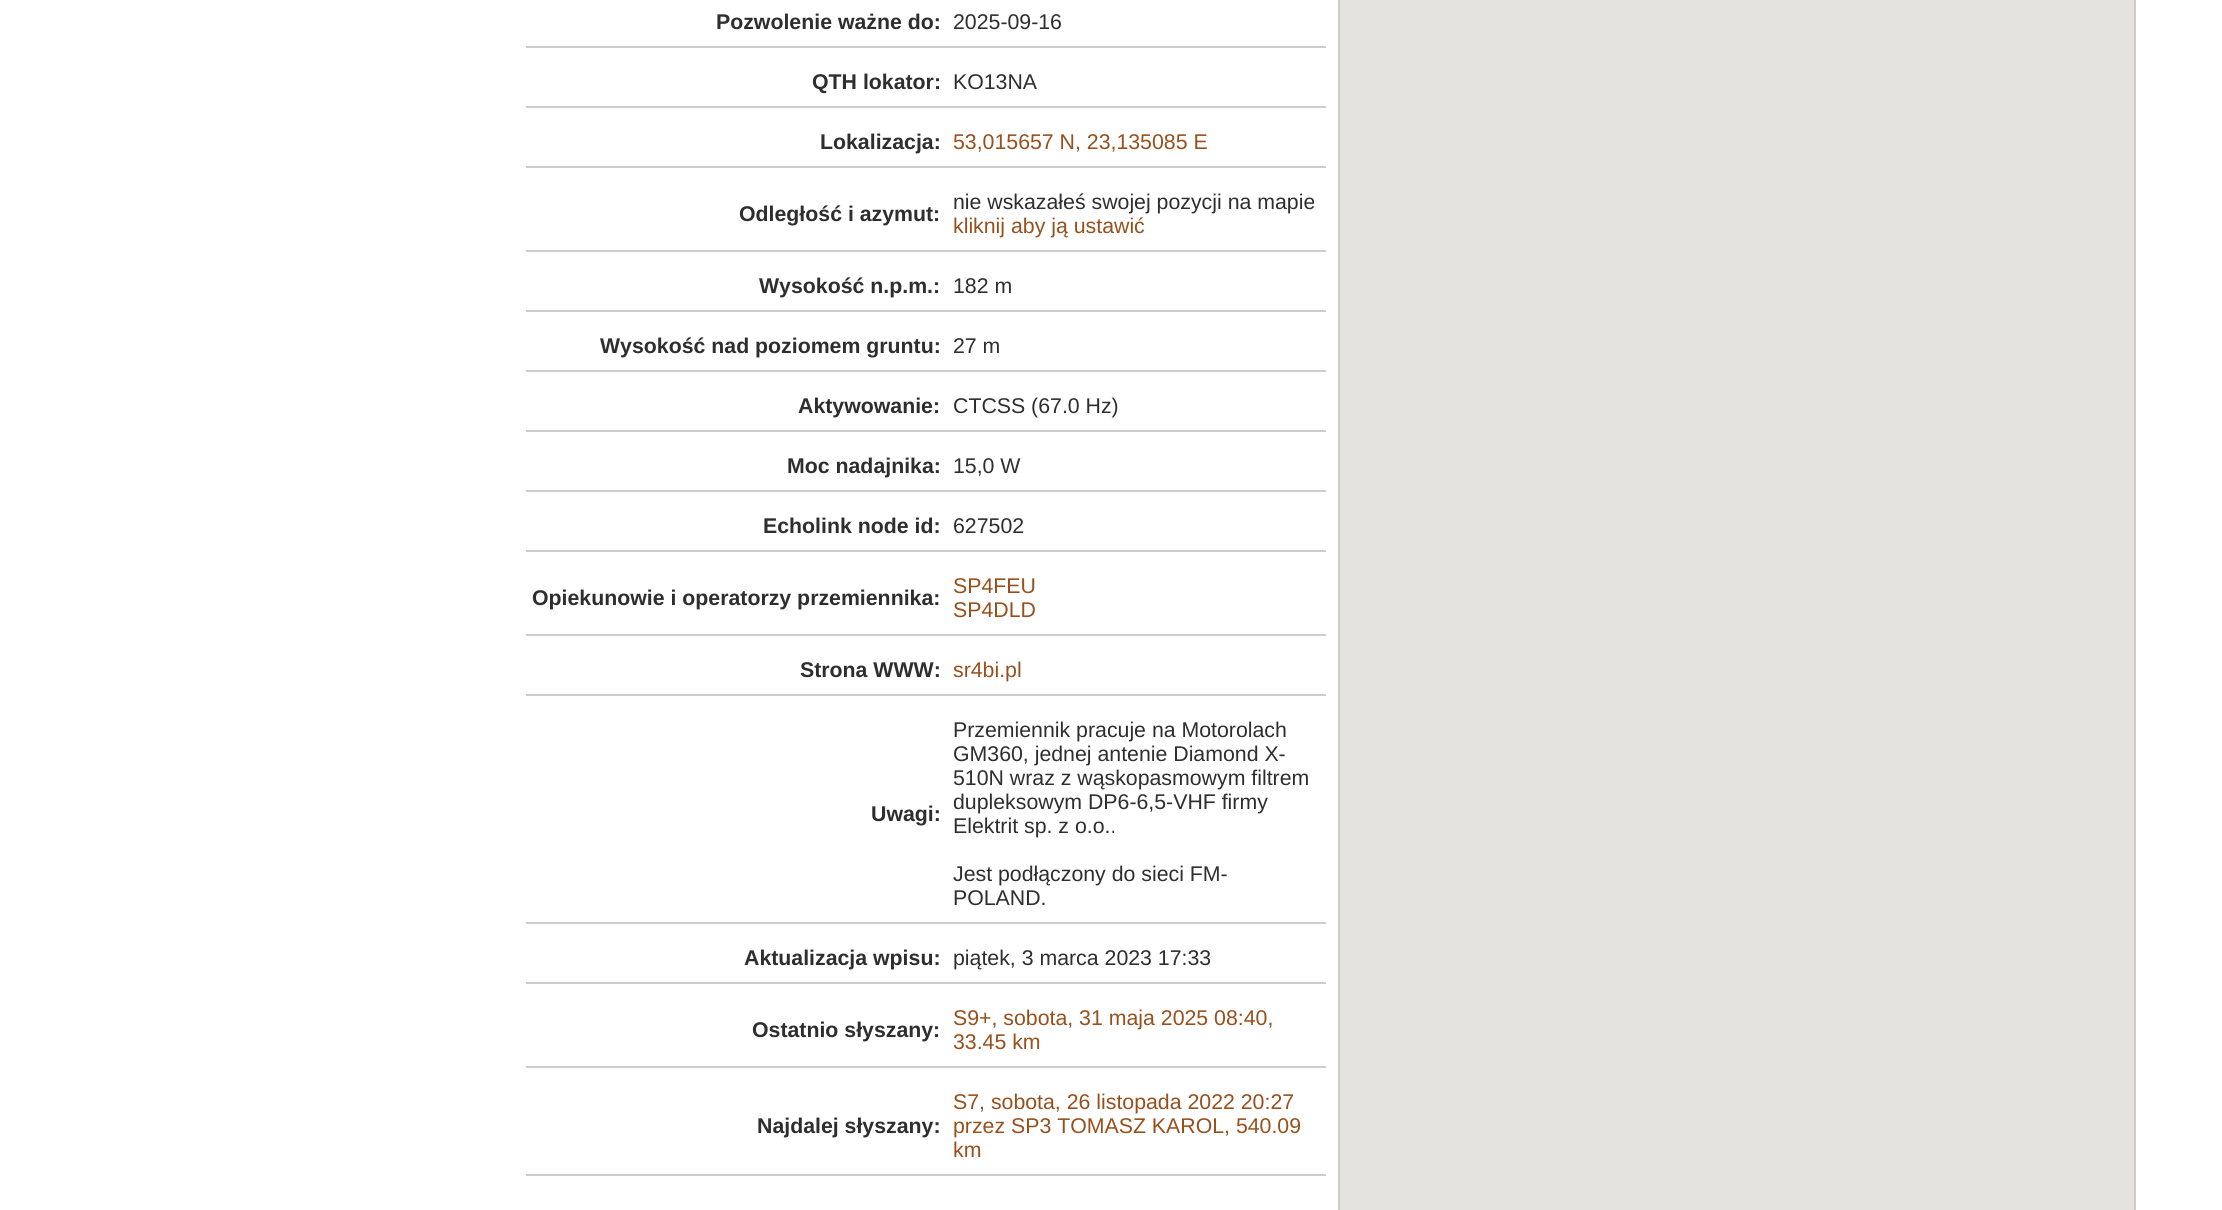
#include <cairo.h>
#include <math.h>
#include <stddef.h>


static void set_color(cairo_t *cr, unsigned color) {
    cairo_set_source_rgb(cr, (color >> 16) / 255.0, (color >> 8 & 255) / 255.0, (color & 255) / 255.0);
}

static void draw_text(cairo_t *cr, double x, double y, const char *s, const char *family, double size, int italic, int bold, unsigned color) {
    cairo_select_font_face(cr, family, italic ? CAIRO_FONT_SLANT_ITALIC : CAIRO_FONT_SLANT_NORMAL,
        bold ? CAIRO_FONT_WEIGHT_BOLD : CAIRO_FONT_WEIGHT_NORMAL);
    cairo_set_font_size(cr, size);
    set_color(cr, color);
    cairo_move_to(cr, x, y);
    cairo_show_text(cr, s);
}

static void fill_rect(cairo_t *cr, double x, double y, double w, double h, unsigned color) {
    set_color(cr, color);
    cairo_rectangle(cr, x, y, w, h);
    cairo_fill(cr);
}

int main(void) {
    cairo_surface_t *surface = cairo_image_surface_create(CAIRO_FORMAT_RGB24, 2222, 1210);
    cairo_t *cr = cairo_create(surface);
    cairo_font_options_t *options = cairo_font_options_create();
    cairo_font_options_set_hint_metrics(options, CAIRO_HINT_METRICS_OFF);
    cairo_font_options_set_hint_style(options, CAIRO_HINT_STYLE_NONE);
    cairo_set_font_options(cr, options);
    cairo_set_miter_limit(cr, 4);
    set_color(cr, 0xFFFFFF);
    cairo_paint(cr);
    draw_text(cr, 716, 29, "Pozwolenie ważne do:", "Liberation Sans", 21.3, 0, 1, 0x2E2E2E);
    draw_text(cr, 953, 29, "2025-09-16", "Liberation Sans", 21.3, 0, 0, 0x2E2E2E);
    draw_text(cr, 812, 89, "QTH lokator:", "Liberation Sans", 21.3, 0, 1, 0x2E2E2E);
    fill_rect(cr, 526, 46, 800, 2, 0xCCCCCC);
    draw_text(cr, 953, 89, "KO13NA", "Liberation Sans", 21.3, 0, 0, 0x2E2E2E);
    draw_text(cr, 820, 149, "Lokalizacja:", "Liberation Sans", 21.3, 0, 1, 0x2E2E2E);
    fill_rect(cr, 526, 106, 800, 2, 0xCCCCCC);
    draw_text(cr, 953, 149, "53,015657 N, 23,135085 E", "Liberation Sans", 21.3, 0, 0, 0x97501D);
    draw_text(cr, 739, 221, "Odległość i azymut:", "Liberation Sans", 21.3, 0, 1, 0x2E2E2E);
    fill_rect(cr, 526, 166, 800, 2, 0xCCCCCC);
    draw_text(cr, 953, 209, "nie wskazałeś swojej pozycji na mapie", "Liberation Sans", 21.3, 0, 0, 0x2E2E2E);
    draw_text(cr, 953, 233, "kliknij aby ją ustawić", "Liberation Sans", 21.3, 0, 0, 0x97501D);
    draw_text(cr, 759, 293, "Wysokość n.p.m.:", "Liberation Sans", 21.3, 0, 1, 0x2E2E2E);
    fill_rect(cr, 526, 250, 800, 2, 0xCCCCCC);
    draw_text(cr, 953, 293, "182 m", "Liberation Sans", 21.3, 0, 0, 0x2E2E2E);
    draw_text(cr, 600, 353, "Wysokość nad poziomem gruntu:", "Liberation Sans", 21.3, 0, 1, 0x2E2E2E);
    fill_rect(cr, 526, 310, 800, 2, 0xCCCCCC);
    draw_text(cr, 953, 353, "27 m", "Liberation Sans", 21.3, 0, 0, 0x2E2E2E);
    draw_text(cr, 798, 413, "Aktywowanie:", "Liberation Sans", 21.3, 0, 1, 0x2E2E2E);
    fill_rect(cr, 526, 370, 800, 2, 0xCCCCCC);
    draw_text(cr, 953, 413, "CTCSS (67.0 Hz)", "Liberation Sans", 21.3, 0, 0, 0x2E2E2E);
    draw_text(cr, 787, 473, "Moc nadajnika:", "Liberation Sans", 21.3, 0, 1, 0x2E2E2E);
    fill_rect(cr, 526, 430, 800, 2, 0xCCCCCC);
    draw_text(cr, 953, 473, "15,0 W", "Liberation Sans", 21.3, 0, 0, 0x2E2E2E);
    draw_text(cr, 763, 533, "Echolink node id:", "Liberation Sans", 21.3, 0, 1, 0x2E2E2E);
    fill_rect(cr, 526, 490, 800, 2, 0xCCCCCC);
    draw_text(cr, 953, 533, "627502", "Liberation Sans", 21.3, 0, 0, 0x2E2E2E);
    draw_text(cr, 532, 605, "Opiekunowie i operatorzy przemiennika:", "Liberation Sans", 21.3, 0, 1, 0x2E2E2E);
    fill_rect(cr, 526, 550, 800, 2, 0xCCCCCC);
    draw_text(cr, 953, 593, "SP4FEU", "Liberation Sans", 21.3, 0, 0, 0x97501D);
    draw_text(cr, 953, 617, "SP4DLD", "Liberation Sans", 21.3, 0, 0, 0x97501D);
    draw_text(cr, 800, 677, "Strona WWW:", "Liberation Sans", 21.3, 0, 1, 0x2E2E2E);
    fill_rect(cr, 526, 634, 800, 2, 0xCCCCCC);
    draw_text(cr, 953, 677, "sr4bi.pl", "Liberation Sans", 21.3, 0, 0, 0x97501D);
    draw_text(cr, 871, 821, "Uwagi:", "Liberation Sans", 21.3, 0, 1, 0x2E2E2E);
    fill_rect(cr, 526, 694, 800, 2, 0xCCCCCC);
    draw_text(cr, 953, 737, "Przemiennik pracuje na Motorolach", "Liberation Sans", 21.3, 0, 0, 0x2E2E2E);
    draw_text(cr, 953, 761, "GM360, jednej antenie Diamond X-", "Liberation Sans", 21.3, 0, 0, 0x2E2E2E);
    draw_text(cr, 953, 785, "510N wraz z wąskopasmowym filtrem", "Liberation Sans", 21.3, 0, 0, 0x2E2E2E);
    draw_text(cr, 953, 809, "dupleksowym DP6-6,5-VHF firmy", "Liberation Sans", 21.3, 0, 0, 0x2E2E2E);
    draw_text(cr, 953, 833, "Elektrit sp. z o.o..", "Liberation Sans", 21.3, 0, 0, 0x2E2E2E);
    draw_text(cr, 953, 881, "Jest podłączony do sieci FM-", "Liberation Sans", 21.3, 0, 0, 0x2E2E2E);
    draw_text(cr, 953, 905, "POLAND.", "Liberation Sans", 21.3, 0, 0, 0x2E2E2E);
    draw_text(cr, 744, 965, "Aktualizacja wpisu:", "Liberation Sans", 21.3, 0, 1, 0x2E2E2E);
    fill_rect(cr, 526, 922, 800, 2, 0xCCCCCC);
    draw_text(cr, 953, 965, "piątek, 3 marca 2023 17:33", "Liberation Sans", 21.3, 0, 0, 0x2E2E2E);
    draw_text(cr, 752, 1037, "Ostatnio słyszany:", "Liberation Sans", 21.3, 0, 1, 0x2E2E2E);
    fill_rect(cr, 526, 982, 800, 2, 0xCCCCCC);
    draw_text(cr, 953, 1025, "S9+, sobota, 31 maja 2025 08:40,", "Liberation Sans", 21.3, 0, 0, 0x97501D);
    draw_text(cr, 953, 1049, "33.45 km", "Liberation Sans", 21.3, 0, 0, 0x97501D);
    draw_text(cr, 757, 1133, "Najdalej słyszany:", "Liberation Sans", 21.3, 0, 1, 0x2E2E2E);
    fill_rect(cr, 526, 1066, 800, 2, 0xCCCCCC);
    draw_text(cr, 953, 1109, "S7, sobota, 26 listopada 2022 20:27", "Liberation Sans", 21.3, 0, 0, 0x97501D);
    draw_text(cr, 953, 1133, "przez SP3 TOMASZ KAROL, 540.09", "Liberation Sans", 21.3, 0, 0, 0x97501D);
    draw_text(cr, 953, 1157, "km", "Liberation Sans", 21.3, 0, 0, 0x97501D);
    fill_rect(cr, 526, 1174, 800, 2, 0xCCCCCC);
    cairo_rectangle(cr, 1339, -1, 796, 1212);
    cairo_stroke(cr);
    fill_rect(cr, 1340, 0, 794, 1210, 0xE5E3DF);
    cairo_surface_write_to_png(surface, "output.png");
    cairo_font_options_destroy(options);
    cairo_destroy(cr);
    cairo_surface_destroy(surface);
    return 0;
}
